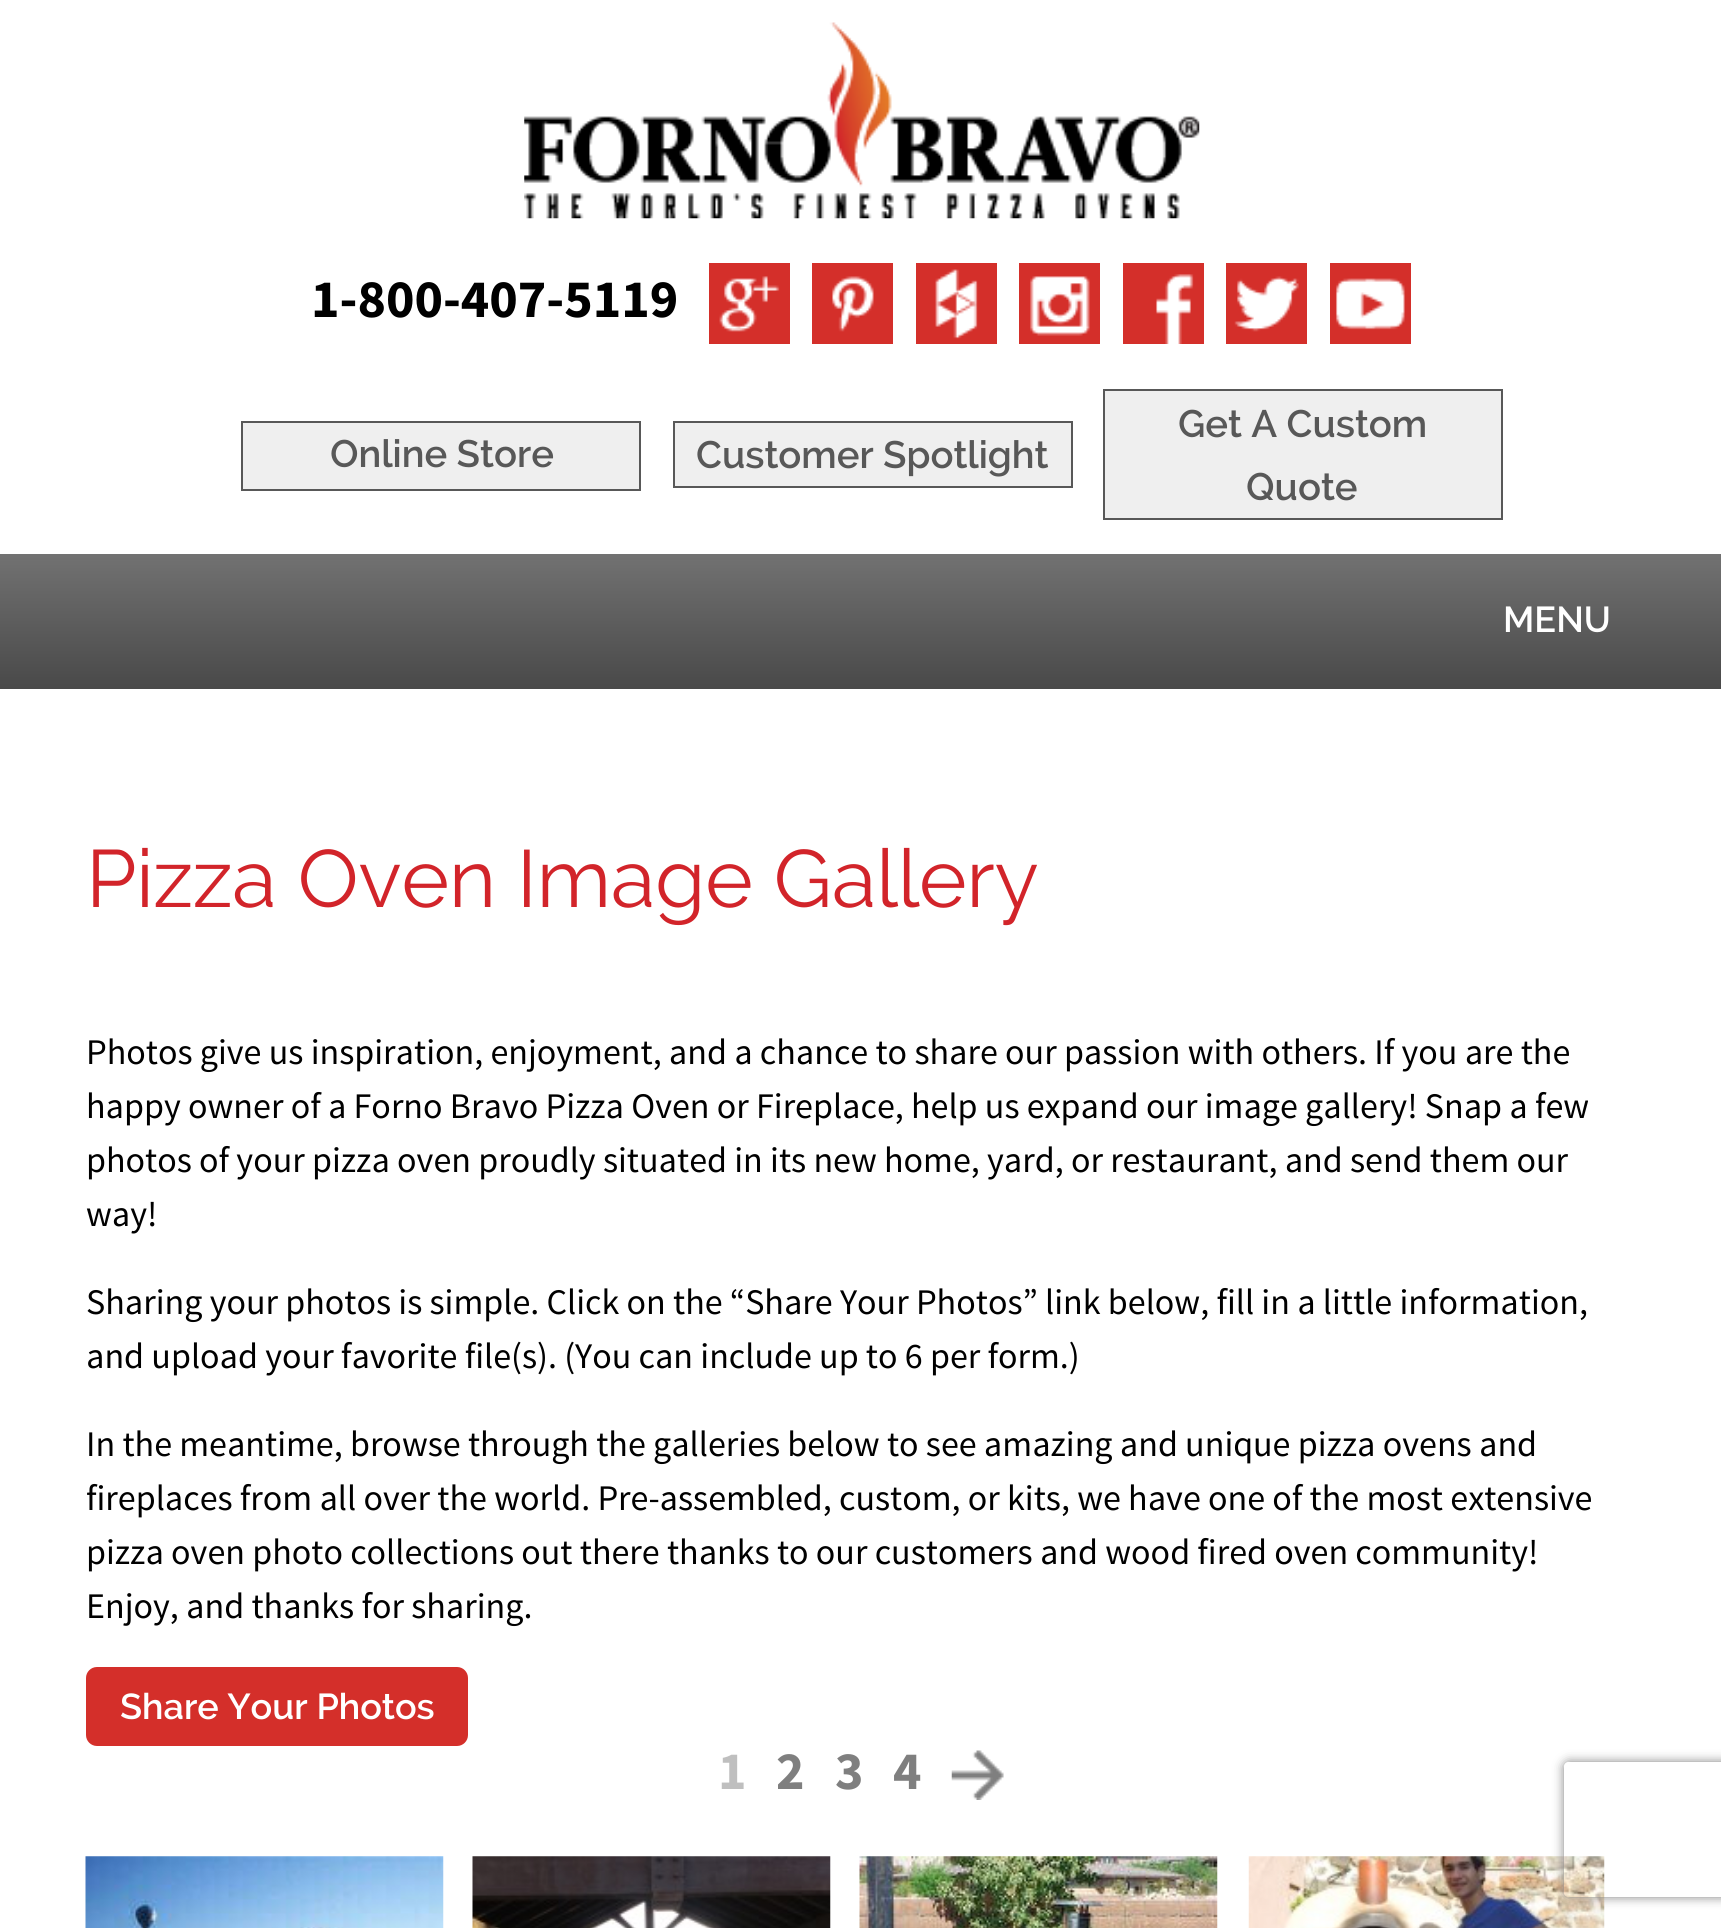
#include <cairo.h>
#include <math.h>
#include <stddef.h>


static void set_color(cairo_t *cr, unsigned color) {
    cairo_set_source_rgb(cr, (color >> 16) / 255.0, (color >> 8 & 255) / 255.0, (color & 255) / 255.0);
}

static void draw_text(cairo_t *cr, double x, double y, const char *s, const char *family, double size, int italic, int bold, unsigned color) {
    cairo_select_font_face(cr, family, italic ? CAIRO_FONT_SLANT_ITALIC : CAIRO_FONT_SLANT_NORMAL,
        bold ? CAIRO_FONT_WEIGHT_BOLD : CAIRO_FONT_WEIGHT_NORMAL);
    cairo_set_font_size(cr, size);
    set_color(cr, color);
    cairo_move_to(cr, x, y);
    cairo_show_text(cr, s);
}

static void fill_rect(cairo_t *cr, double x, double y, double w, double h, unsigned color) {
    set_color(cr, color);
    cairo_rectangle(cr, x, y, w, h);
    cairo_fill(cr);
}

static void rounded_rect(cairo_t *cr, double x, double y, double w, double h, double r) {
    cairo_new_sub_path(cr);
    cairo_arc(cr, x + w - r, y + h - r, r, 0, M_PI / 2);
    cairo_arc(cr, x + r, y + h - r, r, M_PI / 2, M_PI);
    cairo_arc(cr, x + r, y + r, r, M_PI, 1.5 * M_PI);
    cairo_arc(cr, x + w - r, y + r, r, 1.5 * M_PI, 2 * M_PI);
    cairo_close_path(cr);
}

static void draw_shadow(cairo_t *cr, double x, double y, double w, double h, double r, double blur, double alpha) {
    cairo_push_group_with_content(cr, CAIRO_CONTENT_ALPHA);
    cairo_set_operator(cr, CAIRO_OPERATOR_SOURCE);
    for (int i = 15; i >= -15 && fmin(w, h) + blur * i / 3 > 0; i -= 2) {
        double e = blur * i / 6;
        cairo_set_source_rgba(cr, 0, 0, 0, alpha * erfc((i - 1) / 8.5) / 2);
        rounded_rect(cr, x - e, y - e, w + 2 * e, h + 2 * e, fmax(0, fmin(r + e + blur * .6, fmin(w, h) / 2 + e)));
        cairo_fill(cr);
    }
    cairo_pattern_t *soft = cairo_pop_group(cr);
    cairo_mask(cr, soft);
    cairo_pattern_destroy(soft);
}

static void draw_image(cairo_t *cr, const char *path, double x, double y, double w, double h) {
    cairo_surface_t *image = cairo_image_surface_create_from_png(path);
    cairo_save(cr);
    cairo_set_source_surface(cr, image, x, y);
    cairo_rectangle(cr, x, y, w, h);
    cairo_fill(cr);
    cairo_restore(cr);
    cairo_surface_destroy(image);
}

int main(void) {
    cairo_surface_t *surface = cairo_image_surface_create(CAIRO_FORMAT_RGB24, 1721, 1928);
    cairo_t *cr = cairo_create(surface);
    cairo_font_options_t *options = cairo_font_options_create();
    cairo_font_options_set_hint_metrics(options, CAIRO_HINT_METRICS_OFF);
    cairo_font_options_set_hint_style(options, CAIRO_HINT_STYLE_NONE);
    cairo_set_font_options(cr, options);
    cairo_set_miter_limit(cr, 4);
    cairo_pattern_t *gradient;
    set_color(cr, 0xFFFFFF);
    cairo_paint(cr);
    draw_image(cr, "assets/img1.png", 524, 22, 676, 197);
    draw_text(cr, 311, 317, "1-800-407-5119", "Source Sans Pro", 54, 0, 1, 0x000000);
    fill_rect(cr, 709, 263, 81, 81, 0xD42F2A);
    draw_image(cr, "assets/img2.png", 719, 276, 61, 56);
    fill_rect(cr, 812, 263, 81, 81, 0xD42F2A);
    draw_image(cr, "assets/img3.png", 832, 276, 42, 56);
    fill_rect(cr, 916, 263, 81, 81, 0xD42F2A);
    draw_image(cr, "assets/img4.png", 935, 269, 43, 70);
    fill_rect(cr, 1019, 263, 81, 81, 0xD42F2A);
    draw_image(cr, "assets/img5.png", 1030, 276, 60, 60);
    fill_rect(cr, 1123, 263, 81, 81, 0xD42F2A);
    draw_image(cr, "assets/img6.png", 1156, 274, 38, 70);
    fill_rect(cr, 1226, 263, 81, 81, 0xD42F2A);
    draw_image(cr, "assets/img7.png", 1234, 276, 65, 56);
    fill_rect(cr, 1330, 263, 81, 81, 0xD42F2A);
    draw_image(cr, "assets/img8.png", 1336, 278, 69, 52);
    set_color(cr, 0xEFEFEF);
    cairo_rectangle(cr, 242, 422, 398, 68);
    cairo_fill_preserve(cr);
    set_color(cr, 0x585858);
    cairo_stroke(cr);
    draw_text(cr, 330, 467, "Online Store", "Raleway SemiBold", 38.25, 0, 0, 0x585858);
    set_color(cr, 0xEFEFEF);
    cairo_rectangle(cr, 674, 422, 398, 65);
    cairo_fill_preserve(cr);
    set_color(cr, 0x585858);
    cairo_stroke(cr);
    draw_text(cr, 696, 468, "Customer Spotlight", "Raleway SemiBold", 38.25, 0, 0, 0x585858);
    set_color(cr, 0xEFEFEF);
    cairo_rectangle(cr, 1104, 390, 398, 129);
    cairo_fill_preserve(cr);
    set_color(cr, 0x585858);
    cairo_stroke(cr);
    draw_text(cr, 1178, 437, "Get A Custom", "Raleway SemiBold", 38.25, 0, 0, 0x585858);
    draw_text(cr, 1246, 500, "Quote", "Raleway SemiBold", 38.25, 0, 0, 0x585858);
    gradient = cairo_pattern_create_linear(861, 553, 861, 689);
    cairo_pattern_add_color_stop_rgba(gradient, 0, 0.447, 0.447, 0.447, 1);
    cairo_pattern_add_color_stop_rgba(gradient, 1, 0.286, 0.286, 0.286, 1);
    cairo_set_source(cr, gradient);
    cairo_pattern_destroy(gradient);
    cairo_rectangle(cr, 0, 554, 1721, 135);
    cairo_fill(cr);
    draw_text(cr, 1503, 632, "MENU", "Raleway SemiBold", 36, 0, 0, 0xFFFFFF);
    draw_text(cr, 86, 907, "Pizza Oven Image Gallery", "Raleway", 81, 0, 0, 0xD2242A);
    draw_text(cr, 86, 1064, "Photos give us inspiration, enjoyment, and a chance to share our passion with others. If you are the", "Source Sans Pro", 36, 0, 0, 0x000000);
    draw_text(cr, 86, 1118, "happy owner of a Forno Bravo Pizza Oven or Fireplace, help us expand our image gallery! Snap a few", "Source Sans Pro", 36, 0, 0, 0x000000);
    draw_text(cr, 86, 1172, "photos of your pizza oven proudly situated in its new home, yard, or restaurant, and send them our", "Source Sans Pro", 36, 0, 0, 0x000000);
    draw_text(cr, 86, 1226, "way!", "Source Sans Pro", 36, 0, 0, 0x000000);
    draw_text(cr, 86, 1314, "Sharing your photos is simple. Click on the “Share Your Photos” link below, fill in a little information,", "Source Sans Pro", 36, 0, 0, 0x000000);
    draw_text(cr, 86, 1368, "and upload your favorite file(s). (You can include up to 6 per form.)", "Source Sans Pro", 36, 0, 0, 0x000000);
    draw_text(cr, 86, 1456, "In the meantime, browse through the galleries below to see amazing and unique pizza ovens and", "Source Sans Pro", 36, 0, 0, 0x000000);
    draw_text(cr, 86, 1510, "fireplaces from all over the world. Pre-assembled, custom, or kits, we have one of the most extensive", "Source Sans Pro", 36, 0, 0, 0x000000);
    draw_text(cr, 86, 1564, "pizza oven photo collections out there thanks to our customers and wood fired oven community!", "Source Sans Pro", 36, 0, 0, 0x000000);
    draw_text(cr, 86, 1618, "Enjoy, and thanks for sharing.", "Source Sans Pro", 36, 0, 0, 0x000000);
    set_color(cr, 0xD42F2A);
    rounded_rect(cr, 86, 1667, 382, 79, 11);
    cairo_fill(cr);
    draw_text(cr, 120, 1719, "Share Your Photos", "Raleway SemiBold", 36, 0, 0, 0xFFFFFF);
    draw_text(cr, 718, 1789, "1", "Source Sans Pro", 54, 0, 1, 0xBFBFBF);
    draw_text(cr, 776, 1789, "2", "Source Sans Pro", 54, 0, 1, 0x7F7F7F);
    draw_text(cr, 835, 1789, "3", "Source Sans Pro", 54, 0, 1, 0x7F7F7F);
    draw_text(cr, 893, 1789, "4", "Source Sans Pro", 54, 0, 1, 0x7F7F7F);
    draw_image(cr, "assets/img9.png", 951, 1750, 53, 50);
    draw_image(cr, "assets/img10.png", 85, 1856, 359, 72);
    draw_image(cr, "assets/img11.png", 472, 1856, 359, 72);
    draw_image(cr, "assets/img12.png", 859, 1856, 359, 72);
    draw_image(cr, "assets/img13.png", 1248, 1856, 357, 72);
    cairo_save(cr);
    cairo_set_fill_rule(cr, CAIRO_FILL_RULE_EVEN_ODD);
    cairo_new_path(cr);
    cairo_move_to(cr, 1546, 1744);
    cairo_line_to(cr, 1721, 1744);
    cairo_line_to(cr, 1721, 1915);
    cairo_line_to(cr, 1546, 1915);
    cairo_close_path(cr);
    cairo_move_to(cr, 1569, 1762);
    cairo_line_to(cr, 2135, 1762);
    cairo_curve_to(cr, 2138, 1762, 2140, 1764, 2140, 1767);
    cairo_line_to(cr, 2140, 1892);
    cairo_curve_to(cr, 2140, 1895, 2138, 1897, 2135, 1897);
    cairo_line_to(cr, 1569, 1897);
    cairo_curve_to(cr, 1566, 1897, 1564, 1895, 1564, 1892);
    cairo_line_to(cr, 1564, 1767);
    cairo_curve_to(cr, 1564, 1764, 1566, 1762, 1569, 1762);
    cairo_close_path(cr);
    cairo_clip(cr);
    set_color(cr, 0x808080);
    draw_shadow(cr, 1564, 1762, 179, 135, 5, 5.5, 1);
    cairo_restore(cr);
    cairo_surface_write_to_png(surface, "output.png");
    cairo_font_options_destroy(options);
    cairo_destroy(cr);
    cairo_surface_destroy(surface);
    return 0;
}
